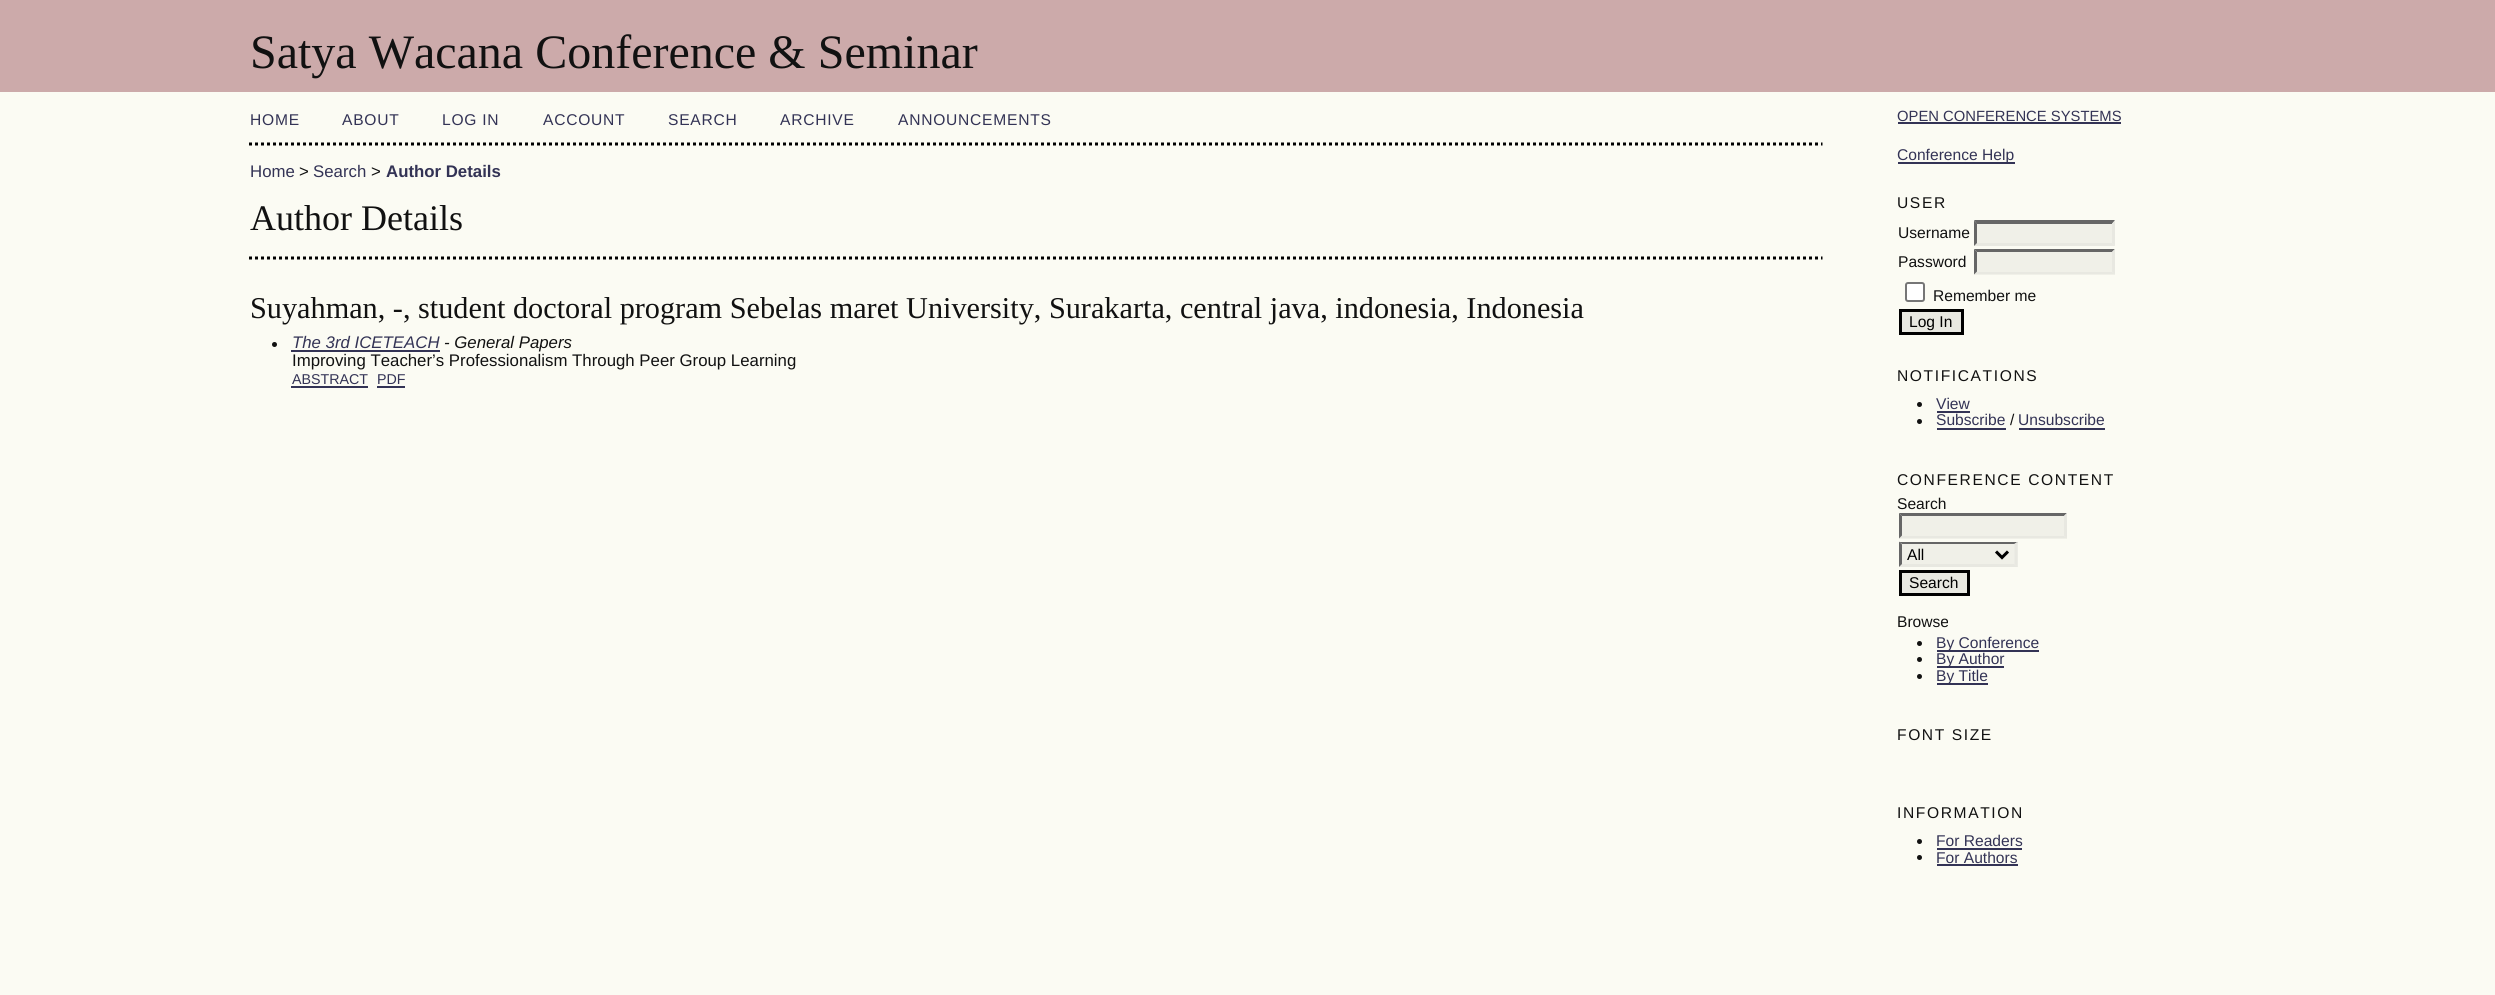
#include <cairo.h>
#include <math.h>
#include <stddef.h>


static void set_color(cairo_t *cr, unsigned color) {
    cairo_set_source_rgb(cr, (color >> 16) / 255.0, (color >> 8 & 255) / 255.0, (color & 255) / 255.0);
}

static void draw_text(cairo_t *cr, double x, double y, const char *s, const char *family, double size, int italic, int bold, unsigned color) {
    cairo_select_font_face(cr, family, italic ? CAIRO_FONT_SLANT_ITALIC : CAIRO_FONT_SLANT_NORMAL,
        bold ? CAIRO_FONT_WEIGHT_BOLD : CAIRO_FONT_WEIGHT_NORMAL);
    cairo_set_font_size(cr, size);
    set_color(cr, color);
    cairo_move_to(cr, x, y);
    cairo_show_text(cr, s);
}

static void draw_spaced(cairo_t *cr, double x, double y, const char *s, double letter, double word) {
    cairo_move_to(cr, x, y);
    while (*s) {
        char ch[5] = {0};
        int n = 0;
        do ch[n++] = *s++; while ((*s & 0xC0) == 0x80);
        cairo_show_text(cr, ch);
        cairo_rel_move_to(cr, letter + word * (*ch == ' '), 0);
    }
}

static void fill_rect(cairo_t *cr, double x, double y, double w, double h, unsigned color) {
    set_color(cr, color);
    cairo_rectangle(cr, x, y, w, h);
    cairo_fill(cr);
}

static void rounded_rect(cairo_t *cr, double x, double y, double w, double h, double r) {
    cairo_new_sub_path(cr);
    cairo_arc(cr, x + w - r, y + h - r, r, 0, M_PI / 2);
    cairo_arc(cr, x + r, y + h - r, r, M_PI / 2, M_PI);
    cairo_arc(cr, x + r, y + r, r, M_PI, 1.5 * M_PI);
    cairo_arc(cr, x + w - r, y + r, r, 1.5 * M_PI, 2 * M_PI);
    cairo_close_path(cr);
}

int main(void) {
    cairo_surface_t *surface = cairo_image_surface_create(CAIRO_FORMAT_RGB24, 2495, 995);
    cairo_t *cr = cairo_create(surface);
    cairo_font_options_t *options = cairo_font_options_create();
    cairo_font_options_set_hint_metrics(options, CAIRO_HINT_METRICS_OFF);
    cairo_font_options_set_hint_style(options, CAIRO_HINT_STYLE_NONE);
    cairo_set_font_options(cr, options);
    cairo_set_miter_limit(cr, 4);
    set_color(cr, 0xFBFBF3);
    cairo_paint(cr);
    fill_rect(cr, 0, 0, 2495, 92, 0xCCAAAA);
    draw_text(cr, 250, 68, "Satya Wacana Conference & Seminar", "Liberation Serif", 48, 0, 0, 0x111111);
    cairo_new_path(cr);
    cairo_move_to(cr, 249, 144);
    cairo_line_to(cr, 1822.5, 144);
    set_color(cr, 0x000000);
    cairo_set_line_width(cr, 3);
    cairo_set_dash(cr, (double[]){3, 3}, 2, 0);
    cairo_stroke(cr);
    cairo_select_font_face(cr, "Liberation Sans", CAIRO_FONT_SLANT_NORMAL, CAIRO_FONT_WEIGHT_NORMAL);
    cairo_set_font_size(cr, 15.6);
    set_color(cr, 0x333355);
    draw_spaced(cr, 250, 125, "HOME", 0.75, 0);
    draw_spaced(cr, 342, 125, "ABOUT", 0.75, 0);
    draw_spaced(cr, 442, 125, "LOG IN", 0.75, 0);
    draw_spaced(cr, 543, 125, "ACCOUNT", 0.75, 0);
    draw_spaced(cr, 668, 125, "SEARCH", 0.75, 0);
    draw_spaced(cr, 780, 125, "ARCHIVE", 0.75, 0);
    draw_spaced(cr, 898, 125, "ANNOUNCEMENTS", 0.75, 0);
    draw_text(cr, 250, 177, "Home", "Liberation Sans", 16.8, 0, 0, 0x333355);
    draw_text(cr, 299, 177, ">", "Liberation Sans", 16.8, 0, 0, 0x111111);
    draw_text(cr, 313, 177, "Search", "Liberation Sans", 16.8, 0, 0, 0x333355);
    draw_text(cr, 371, 177, ">", "Liberation Sans", 16.8, 0, 0, 0x111111);
    draw_text(cr, 386, 177, "Author Details", "Liberation Sans", 16.8, 0, 1, 0x333355);
    draw_text(cr, 250, 230, "Author Details", "Liberation Serif", 36, 0, 0, 0x111111);
    cairo_new_path(cr);
    cairo_move_to(cr, 249, 258);
    cairo_line_to(cr, 1822.5, 258);
    set_color(cr, 0x000000);
    cairo_stroke(cr);
    draw_text(cr, 250, 318, "Suyahman, -, student doctoral program Sebelas maret University, Surakarta, central java, indonesia, Indonesia", "Liberation Serif", 30.25, 0, 0, 0x111111);
    cairo_new_path(cr);
    cairo_arc(cr, 274.5, 344.5, 2.5, 0, 2 * M_PI);
    cairo_fill(cr);
    draw_text(cr, 292, 348, "The 3rd ICETEACH", "Liberation Sans", 16.8, 1, 0, 0x333355);
    fill_rect(cr, 291, 350, 149, 2, 0x333355);
    draw_text(cr, 444, 348, "- General Papers", "Liberation Sans", 16.8, 1, 0, 0x111111);
    draw_text(cr, 292, 366, "Improving Teacher’s Professionalism Through Peer Group Learning", "Liberation Sans", 16.8, 0, 0, 0x111111);
    draw_text(cr, 292, 384, "ABSTRACT", "Liberation Sans", 14.25, 0, 0, 0x333355);
    fill_rect(cr, 291, 386, 77, 2, 0x333355);
    draw_text(cr, 377, 384, "PDF", "Liberation Sans", 14.25, 0, 0, 0x333355);
    fill_rect(cr, 377, 386, 28, 2, 0x333355);
    draw_text(cr, 1897, 121, "OPEN CONFERENCE SYSTEMS", "Liberation Sans", 14.8, 0, 0, 0x333355);
    fill_rect(cr, 1898, 122, 223, 2, 0x333355);
    fill_rect(cr, 1898, 162, 117, 2, 0x333355);
    draw_text(cr, 1897, 160, "Conference Help", "Liberation Sans", 15.6, 0, 0, 0x333355);
    set_color(cr, 0x111111);
    draw_spaced(cr, 1897, 208, "USER", 1.6, 0);
    draw_text(cr, 1898, 238, "Username", "Liberation Sans", 15.6, 0, 0, 0x111111);
    fill_rect(cr, 1974, 221, 141, 25, 0xF0F0E8);
    set_color(cr, 0x666666);
    cairo_new_path(cr);
    cairo_move_to(cr, 1974, 220);
    cairo_line_to(cr, 2115, 220);
    cairo_line_to(cr, 2112, 224);
    cairo_line_to(cr, 1977, 224);
    cairo_close_path(cr);
    cairo_fill(cr);
    set_color(cr, 0xE8E8E1);
    cairo_new_path(cr);
    cairo_move_to(cr, 2115, 220.5);
    cairo_line_to(cr, 2115, 246);
    cairo_line_to(cr, 2112, 243);
    cairo_line_to(cr, 2112, 223.5);
    cairo_close_path(cr);
    cairo_fill(cr);
    cairo_new_path(cr);
    cairo_move_to(cr, 2115, 246);
    cairo_line_to(cr, 1974, 246);
    cairo_line_to(cr, 1977, 243);
    cairo_line_to(cr, 2112, 243);
    cairo_close_path(cr);
    cairo_fill(cr);
    set_color(cr, 0x666666);
    cairo_new_path(cr);
    cairo_move_to(cr, 1974, 246);
    cairo_line_to(cr, 1974, 220.5);
    cairo_line_to(cr, 1977, 223.5);
    cairo_line_to(cr, 1977, 243);
    cairo_close_path(cr);
    cairo_fill(cr);
    draw_text(cr, 1898, 267, "Password", "Liberation Sans", 15.6, 0, 0, 0x111111);
    fill_rect(cr, 1974, 249, 141, 26, 0xF0F0E8);
    set_color(cr, 0x666666);
    cairo_new_path(cr);
    cairo_move_to(cr, 1974, 249);
    cairo_line_to(cr, 2115, 249);
    cairo_line_to(cr, 2112, 252);
    cairo_line_to(cr, 1977, 252);
    cairo_close_path(cr);
    cairo_fill(cr);
    set_color(cr, 0xE8E8E1);
    cairo_new_path(cr);
    cairo_move_to(cr, 2115, 249);
    cairo_line_to(cr, 2115, 274.5);
    cairo_line_to(cr, 2112, 271.5);
    cairo_line_to(cr, 2112, 252);
    cairo_close_path(cr);
    cairo_fill(cr);
    cairo_new_path(cr);
    cairo_move_to(cr, 2115, 274);
    cairo_line_to(cr, 1974, 274);
    cairo_line_to(cr, 1977, 272);
    cairo_line_to(cr, 2112, 272);
    cairo_close_path(cr);
    cairo_fill(cr);
    set_color(cr, 0x666666);
    cairo_new_path(cr);
    cairo_move_to(cr, 1974, 274.5);
    cairo_line_to(cr, 1974, 249);
    cairo_line_to(cr, 1977, 252);
    cairo_line_to(cr, 1977, 271.5);
    cairo_close_path(cr);
    cairo_fill(cr);
    set_color(cr, 0xFFFFFF);
    rounded_rect(cr, 1906, 283, 18, 18, 2);
    cairo_fill_preserve(cr);
    set_color(cr, 0x767676);
    cairo_set_line_width(cr, 2);
    cairo_set_dash(cr, NULL, 0, 0);
    cairo_stroke(cr);
    draw_text(cr, 1933, 301, "Remember me", "Liberation Sans", 15.6, 0, 0, 0x111111);
    set_color(cr, 0xE8E8E1);
    cairo_rectangle(cr, 1900.5, 310.5, 62, 23);
    cairo_fill_preserve(cr);
    set_color(cr, 0x000000);
    cairo_set_line_width(cr, 3);
    cairo_stroke(cr);
    draw_text(cr, 1909, 327, "Log In", "Liberation Sans", 15.6, 0, 0, 0x000000);
    set_color(cr, 0x111111);
    draw_spaced(cr, 1897, 381, "NOTIFICATIONS", 1.6, 0);
    cairo_new_path(cr);
    cairo_arc(cr, 1919.5, 404.5, 2.5, 0, 2 * M_PI);
    cairo_fill(cr);
    draw_text(cr, 1936, 409, "View", "Liberation Sans", 15.6, 0, 0, 0x333355);
    fill_rect(cr, 1937, 411, 33, 2, 0x333355);
    set_color(cr, 0x111111);
    cairo_new_path(cr);
    cairo_arc(cr, 1919.5, 421.5, 2.5, 0, 2 * M_PI);
    cairo_fill(cr);
    draw_text(cr, 1936, 425, "Subscribe", "Liberation Sans", 15.6, 0, 0, 0x333355);
    fill_rect(cr, 1937, 428, 69, 2, 0x333355);
    draw_text(cr, 2010, 425, "/", "Liberation Sans", 15.6, 0, 0, 0x111111);
    draw_text(cr, 2018, 425, "Unsubscribe", "Liberation Sans", 15.6, 0, 0, 0x333355);
    fill_rect(cr, 2019, 428, 86, 2, 0x333355);
    set_color(cr, 0x111111);
    draw_spaced(cr, 1897, 485, "CONFERENCE CONTENT", 1.6, 0);
    draw_text(cr, 1897, 509, "Search", "Liberation Sans", 15.6, 0, 0, 0x111111);
    fill_rect(cr, 1899, 513, 168, 26, 0xF0F0E8);
    set_color(cr, 0x666666);
    cairo_new_path(cr);
    cairo_move_to(cr, 1899, 513);
    cairo_line_to(cr, 2067, 513);
    cairo_line_to(cr, 2064, 516);
    cairo_line_to(cr, 1902, 516);
    cairo_close_path(cr);
    cairo_fill(cr);
    set_color(cr, 0xE8E8E1);
    cairo_new_path(cr);
    cairo_move_to(cr, 2067, 513);
    cairo_line_to(cr, 2067, 538.5);
    cairo_line_to(cr, 2064, 535.5);
    cairo_line_to(cr, 2064, 516);
    cairo_close_path(cr);
    cairo_fill(cr);
    cairo_new_path(cr);
    cairo_move_to(cr, 2067, 538);
    cairo_line_to(cr, 1899, 538);
    cairo_line_to(cr, 1902, 536);
    cairo_line_to(cr, 2064, 536);
    cairo_close_path(cr);
    cairo_fill(cr);
    set_color(cr, 0x666666);
    cairo_new_path(cr);
    cairo_move_to(cr, 1899, 538.5);
    cairo_line_to(cr, 1899, 513);
    cairo_line_to(cr, 1902, 516);
    cairo_line_to(cr, 1902, 535.5);
    cairo_close_path(cr);
    cairo_fill(cr);
    fill_rect(cr, 1899, 542, 119, 25, 0xF0F0E8);
    set_color(cr, 0x666666);
    cairo_new_path(cr);
    cairo_move_to(cr, 1899, 542);
    cairo_line_to(cr, 2018, 542);
    cairo_line_to(cr, 2014, 544);
    cairo_line_to(cr, 1902, 544);
    cairo_close_path(cr);
    cairo_fill(cr);
    set_color(cr, 0xE8E8E1);
    cairo_new_path(cr);
    cairo_move_to(cr, 2017.5, 541.5);
    cairo_line_to(cr, 2017.5, 567);
    cairo_line_to(cr, 2014.5, 564);
    cairo_line_to(cr, 2014.5, 544.5);
    cairo_close_path(cr);
    cairo_fill(cr);
    cairo_new_path(cr);
    cairo_move_to(cr, 2018, 567);
    cairo_line_to(cr, 1899, 567);
    cairo_line_to(cr, 1902, 564);
    cairo_line_to(cr, 2014, 564);
    cairo_close_path(cr);
    cairo_fill(cr);
    set_color(cr, 0x666666);
    cairo_new_path(cr);
    cairo_move_to(cr, 1899, 567);
    cairo_line_to(cr, 1899, 541.5);
    cairo_line_to(cr, 1902, 544.5);
    cairo_line_to(cr, 1902, 564);
    cairo_close_path(cr);
    cairo_fill(cr);
    cairo_new_path(cr);
    cairo_move_to(cr, 1996, 551.5);
    cairo_line_to(cr, 2002, 557.5);
    cairo_line_to(cr, 2008, 551.5);
    set_color(cr, 0x000000);
    cairo_stroke(cr);
    draw_text(cr, 1907, 560, "All", "Liberation Sans", 15.6, 0, 0, 0x000000);
    set_color(cr, 0xE8E8E1);
    cairo_rectangle(cr, 1900.5, 571.5, 68, 23);
    cairo_fill_preserve(cr);
    set_color(cr, 0x000000);
    cairo_stroke(cr);
    draw_text(cr, 1909, 588, "Search", "Liberation Sans", 15.6, 0, 0, 0x000000);
    draw_text(cr, 1897, 627, "Browse", "Liberation Sans", 15.6, 0, 0, 0x111111);
    cairo_new_path(cr);
    cairo_arc(cr, 1919.5, 643.5, 2.5, 0, 2 * M_PI);
    cairo_fill(cr);
    fill_rect(cr, 1937, 650, 102, 2, 0x333355);
    draw_text(cr, 1936, 648, "By Conference", "Liberation Sans", 15.6, 0, 0, 0x333355);
    set_color(cr, 0x111111);
    cairo_new_path(cr);
    cairo_arc(cr, 1919.5, 659.5, 2.5, 0, 2 * M_PI);
    cairo_fill(cr);
    fill_rect(cr, 1937, 666, 67, 2, 0x333355);
    draw_text(cr, 1936, 664, "By Author", "Liberation Sans", 15.6, 0, 0, 0x333355);
    set_color(cr, 0x111111);
    cairo_new_path(cr);
    cairo_arc(cr, 1919.5, 676.5, 2.5, 0, 2 * M_PI);
    cairo_fill(cr);
    fill_rect(cr, 1937, 683, 51, 2, 0x333355);
    draw_text(cr, 1936, 681, "By Title", "Liberation Sans", 15.6, 0, 0, 0x333355);
    set_color(cr, 0x111111);
    draw_spaced(cr, 1897, 740, "FONT SIZE", 1.6, 0);
    draw_spaced(cr, 1897, 818, "INFORMATION", 1.6, 0);
    cairo_new_path(cr);
    cairo_arc(cr, 1919.5, 841.5, 2.5, 0, 2 * M_PI);
    cairo_fill(cr);
    draw_text(cr, 1936, 846, "For Readers", "Liberation Sans", 15.6, 0, 0, 0x333355);
    fill_rect(cr, 1937, 848, 85, 2, 0x333355);
    set_color(cr, 0x111111);
    cairo_new_path(cr);
    cairo_arc(cr, 1919.5, 857.5, 2.5, 0, 2 * M_PI);
    cairo_fill(cr);
    draw_text(cr, 1936, 863, "For Authors", "Liberation Sans", 15.6, 0, 0, 0x333355);
    fill_rect(cr, 1937, 864, 81, 2, 0x333355);
    cairo_surface_write_to_png(surface, "output.png");
    cairo_font_options_destroy(options);
    cairo_destroy(cr);
    cairo_surface_destroy(surface);
    return 0;
}
